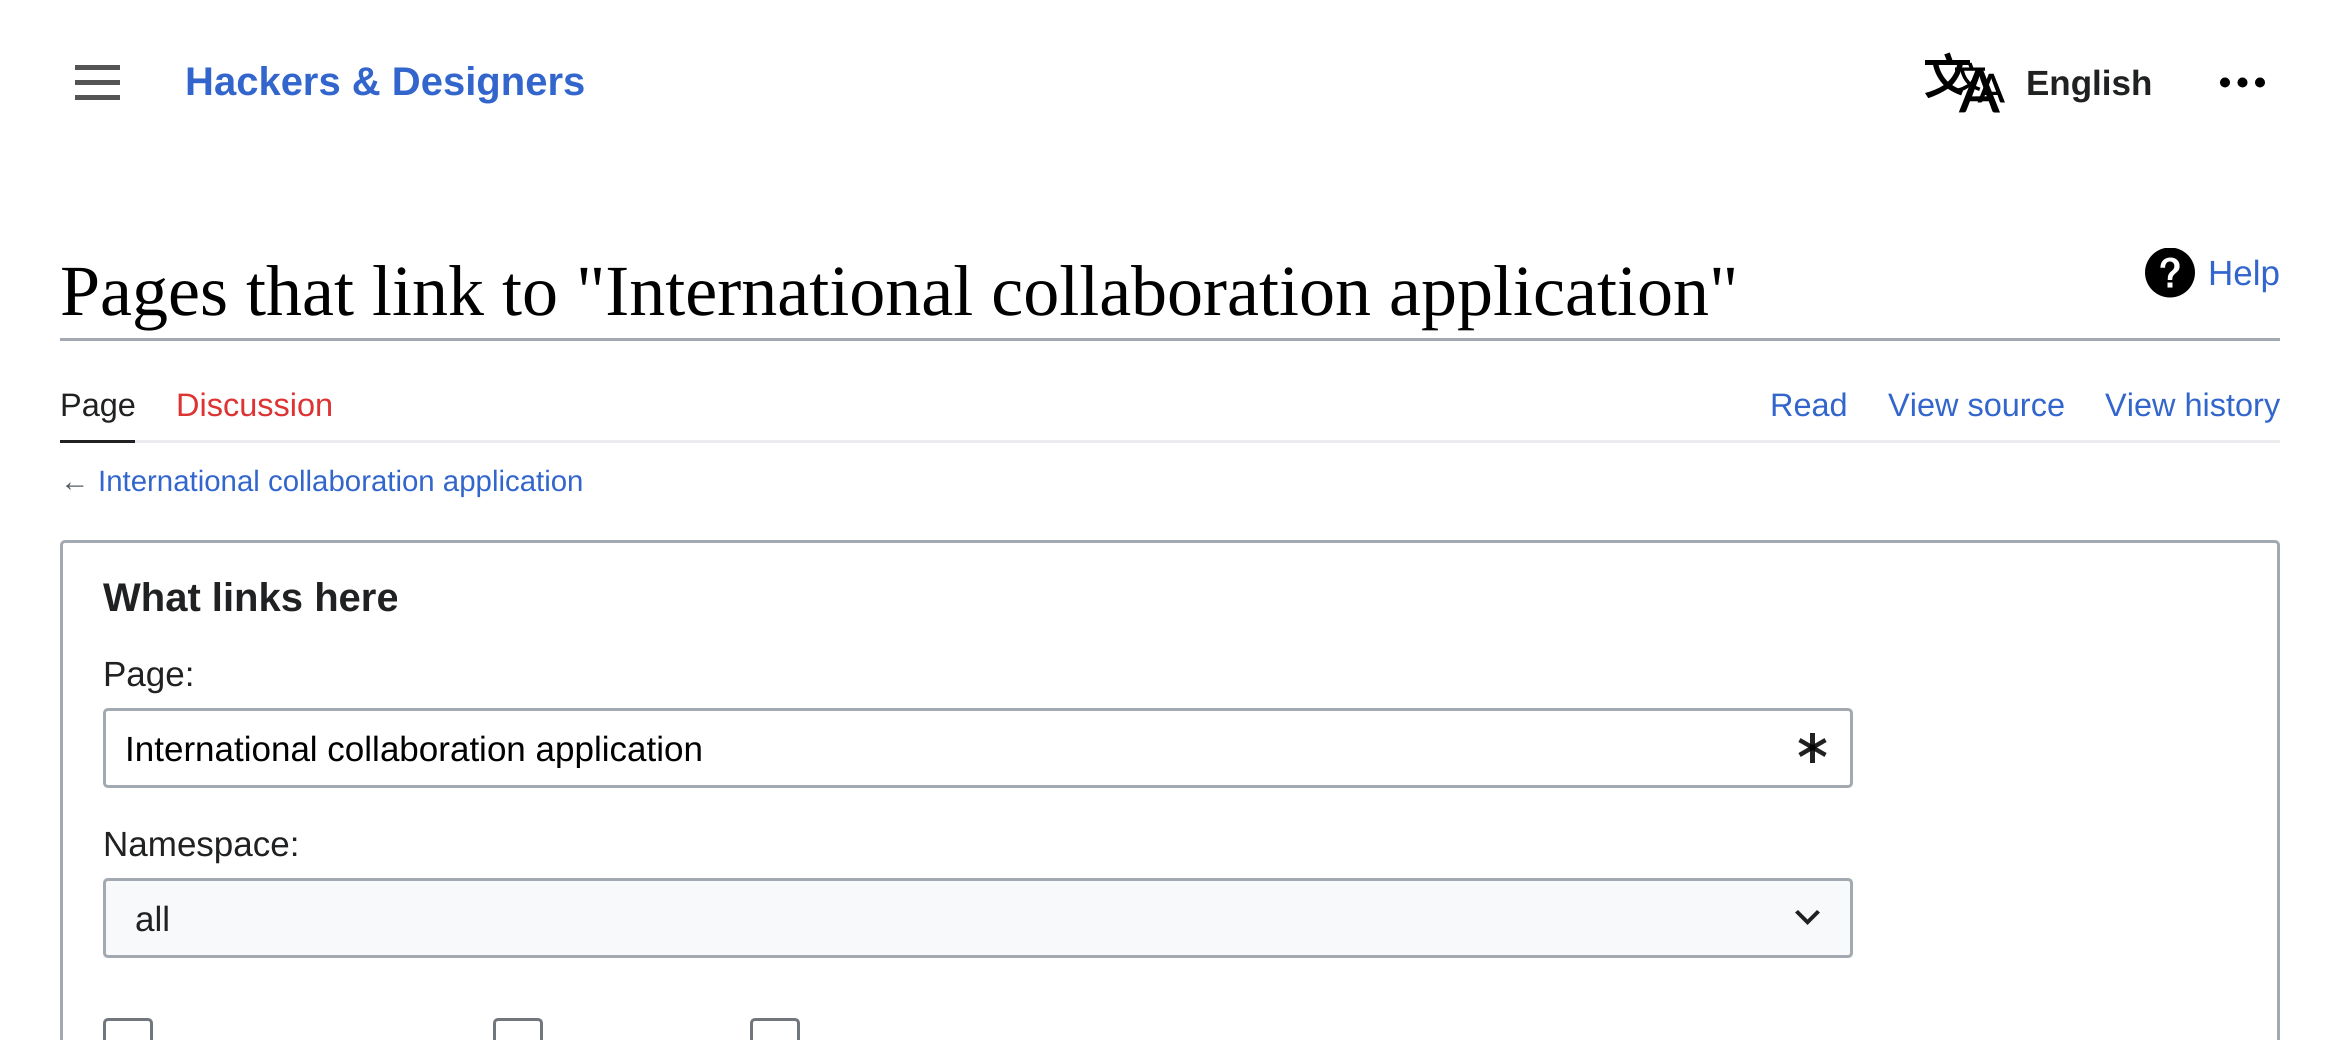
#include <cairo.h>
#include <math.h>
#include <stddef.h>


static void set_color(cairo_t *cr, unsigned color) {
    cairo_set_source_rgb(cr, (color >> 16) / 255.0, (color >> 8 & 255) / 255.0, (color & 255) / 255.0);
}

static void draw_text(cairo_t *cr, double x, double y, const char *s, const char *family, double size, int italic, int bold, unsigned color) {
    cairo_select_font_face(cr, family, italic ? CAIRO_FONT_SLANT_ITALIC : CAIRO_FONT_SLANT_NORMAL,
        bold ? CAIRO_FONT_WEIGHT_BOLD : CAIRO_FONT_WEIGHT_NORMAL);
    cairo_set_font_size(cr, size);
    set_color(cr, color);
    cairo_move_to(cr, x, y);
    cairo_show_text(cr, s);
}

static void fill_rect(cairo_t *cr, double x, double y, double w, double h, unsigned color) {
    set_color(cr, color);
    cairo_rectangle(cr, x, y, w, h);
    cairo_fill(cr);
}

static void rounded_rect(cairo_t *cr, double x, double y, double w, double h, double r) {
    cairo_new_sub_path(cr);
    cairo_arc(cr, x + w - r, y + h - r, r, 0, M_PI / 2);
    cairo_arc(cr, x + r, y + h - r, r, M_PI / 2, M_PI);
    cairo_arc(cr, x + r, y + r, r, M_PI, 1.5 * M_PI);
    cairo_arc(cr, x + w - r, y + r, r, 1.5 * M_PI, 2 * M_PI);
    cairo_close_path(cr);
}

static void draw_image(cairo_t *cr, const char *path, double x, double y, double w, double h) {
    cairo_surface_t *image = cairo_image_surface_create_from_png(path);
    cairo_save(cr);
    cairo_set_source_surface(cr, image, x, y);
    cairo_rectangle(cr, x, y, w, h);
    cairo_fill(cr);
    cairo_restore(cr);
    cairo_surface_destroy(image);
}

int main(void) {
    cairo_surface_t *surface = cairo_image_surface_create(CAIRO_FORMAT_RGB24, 2338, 1040);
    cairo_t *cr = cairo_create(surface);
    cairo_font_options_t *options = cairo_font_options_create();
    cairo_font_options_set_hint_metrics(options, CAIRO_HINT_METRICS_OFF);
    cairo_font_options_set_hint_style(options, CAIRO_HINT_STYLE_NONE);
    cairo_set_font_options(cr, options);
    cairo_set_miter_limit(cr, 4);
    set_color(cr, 0xFFFFFF);
    cairo_paint(cr);
    set_color(cr, 0x545454);
    cairo_new_path(cr);
    cairo_move_to(cr, 75, 65);
    cairo_line_to(cr, 75, 70);
    cairo_line_to(cr, 120, 70);
    cairo_line_to(cr, 120, 65);
    cairo_close_path(cr);
    cairo_move_to(cr, 75, 85);
    cairo_line_to(cr, 120, 85);
    cairo_line_to(cr, 120, 80);
    cairo_line_to(cr, 75, 80);
    cairo_close_path(cr);
    cairo_move_to(cr, 75, 100);
    cairo_line_to(cr, 120, 100);
    cairo_line_to(cr, 120, 95);
    cairo_line_to(cr, 75, 95);
    cairo_close_path(cr);
    cairo_fill(cr);
    draw_text(cr, 185, 95, "Hackers & Designers", "Liberation Sans", 40, 0, 1, 0x3366CC);
    draw_image(cr, "assets/img1.png", 1925, 52, 75, 61);
    draw_image(cr, "assets/img2.png", 1955, 62, 50, 41);
    draw_text(cr, 2026, 95, "English", "Liberation Sans", 35, 0, 1, 0x202122);
    draw_image(cr, "assets/img3.png", 2219, 77, 46, 11);
    fill_rect(cr, 60, 338, 2220, 3, 0xA2A9B1);
    draw_text(cr, 60, 315, "Pages that link to \"International collaboration application\"", "Liberation Serif", 72, 0, 0, 0x000000);
    draw_image(cr, "assets/img4.png", 2145, 248, 50, 50);
    draw_text(cr, 2208, 285, "Help", "Liberation Sans", 35, 0, 0, 0x3366CC);
    fill_rect(cr, 135, 440, 2145, 3, 0xEAECF0);
    fill_rect(cr, 60, 440, 75, 3, 0x202122);
    draw_text(cr, 60, 416, "Page", "Liberation Sans", 32.5, 0, 0, 0x202122);
    draw_text(cr, 176, 416, "Discussion", "Liberation Sans", 32.5, 0, 0, 0xDD3333);
    draw_text(cr, 1770, 416, "Read", "Liberation Sans", 32.5, 0, 0, 0x3366CC);
    draw_text(cr, 1888, 416, "View source", "Liberation Sans", 32.5, 0, 0, 0x3366CC);
    draw_text(cr, 2105, 416, "View history", "Liberation Sans", 32.5, 0, 0, 0x3366CC);
    draw_text(cr, 60, 491, "←", "Liberation Sans", 29.4, 0, 0, 0x54595D);
    draw_text(cr, 98, 491, "International collaboration application", "Liberation Sans", 29.4, 0, 0, 0x3366CC);
    rounded_rect(cr, 61.5, 541.5, 2217, 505, 3.5);
    set_color(cr, 0xA2A9B1);
    cairo_set_line_width(cr, 3);
    cairo_stroke(cr);
    draw_text(cr, 103, 611, "What links here", "Liberation Sans", 40, 0, 1, 0x202122);
    draw_text(cr, 103, 686, "Page:", "Liberation Sans", 35, 0, 0, 0x202122);
    rounded_rect(cr, 104.5, 709.5, 1747, 77, 3.5);
    set_color(cr, 0xA2A9B1);
    cairo_stroke(cr);
    cairo_save(cr);
    cairo_rectangle(cr, 125, 728, 1655, 40);
    cairo_clip(cr);
    draw_text(cr, 125, 761, "International collaboration application", "Liberation Sans", 35, 0, 0, 0x000000);
    cairo_restore(cr);
    draw_image(cr, "assets/img5.png", 1798, 733, 29, 30);
    draw_text(cr, 103, 856, "Namespace:", "Liberation Sans", 35, 0, 0, 0x202122);
    fill_rect(cr, 103, 878, 1750, 80, 0xF8F9FA);
    rounded_rect(cr, 104.5, 879.5, 1747, 77, 3.5);
    set_color(cr, 0xA2A9B1);
    cairo_stroke(cr);
    draw_text(cr, 135, 931, "all", "Liberation Sans", 35, 0, 0, 0x202122);
    set_color(cr, 0x202021);
    cairo_new_path(cr);
    cairo_move_to(cr, 1817, 910);
    cairo_line_to(cr, 1807.5, 919.5);
    cairo_line_to(cr, 1798, 910);
    cairo_line_to(cr, 1795, 912.5);
    cairo_line_to(cr, 1807.5, 925);
    cairo_line_to(cr, 1820, 912.5);
    cairo_close_path(cr);
    cairo_fill(cr);
    rounded_rect(cr, 104.5, 1019.5, 47, 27, 3.5);
    set_color(cr, 0x72777D);
    cairo_stroke(cr);
    rounded_rect(cr, 494.5, 1019.5, 47, 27, 3.5);
    cairo_stroke(cr);
    rounded_rect(cr, 751.5, 1019.5, 47, 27, 3.5);
    cairo_stroke(cr);
    cairo_surface_write_to_png(surface, "output.png");
    cairo_font_options_destroy(options);
    cairo_destroy(cr);
    cairo_surface_destroy(surface);
    return 0;
}
